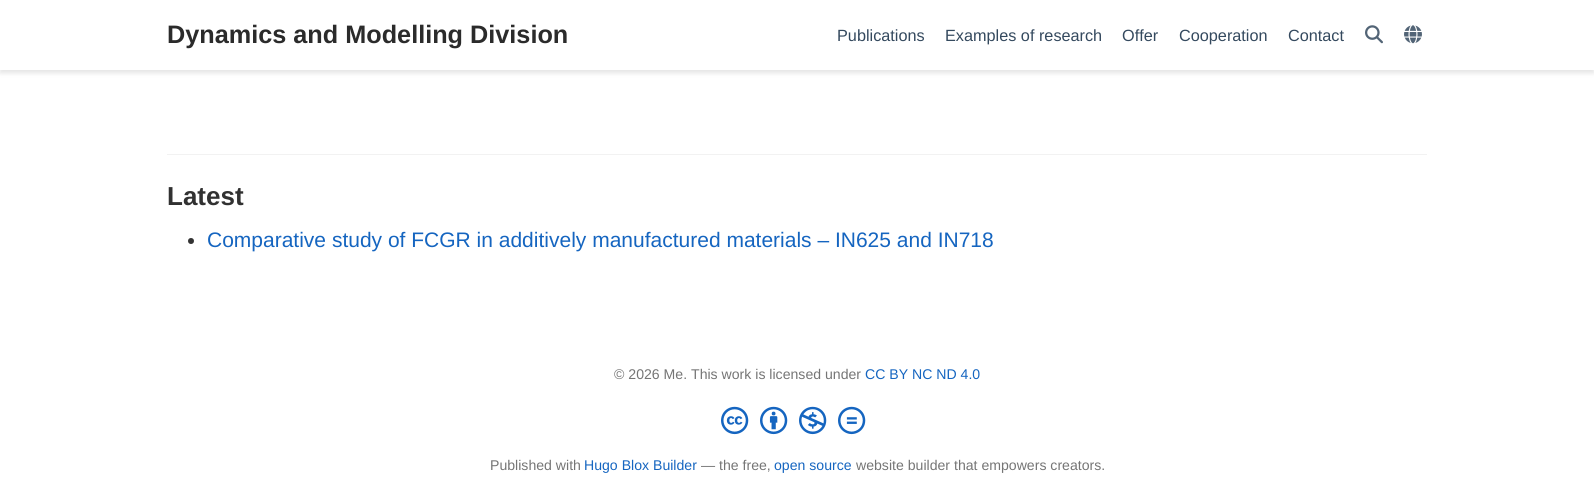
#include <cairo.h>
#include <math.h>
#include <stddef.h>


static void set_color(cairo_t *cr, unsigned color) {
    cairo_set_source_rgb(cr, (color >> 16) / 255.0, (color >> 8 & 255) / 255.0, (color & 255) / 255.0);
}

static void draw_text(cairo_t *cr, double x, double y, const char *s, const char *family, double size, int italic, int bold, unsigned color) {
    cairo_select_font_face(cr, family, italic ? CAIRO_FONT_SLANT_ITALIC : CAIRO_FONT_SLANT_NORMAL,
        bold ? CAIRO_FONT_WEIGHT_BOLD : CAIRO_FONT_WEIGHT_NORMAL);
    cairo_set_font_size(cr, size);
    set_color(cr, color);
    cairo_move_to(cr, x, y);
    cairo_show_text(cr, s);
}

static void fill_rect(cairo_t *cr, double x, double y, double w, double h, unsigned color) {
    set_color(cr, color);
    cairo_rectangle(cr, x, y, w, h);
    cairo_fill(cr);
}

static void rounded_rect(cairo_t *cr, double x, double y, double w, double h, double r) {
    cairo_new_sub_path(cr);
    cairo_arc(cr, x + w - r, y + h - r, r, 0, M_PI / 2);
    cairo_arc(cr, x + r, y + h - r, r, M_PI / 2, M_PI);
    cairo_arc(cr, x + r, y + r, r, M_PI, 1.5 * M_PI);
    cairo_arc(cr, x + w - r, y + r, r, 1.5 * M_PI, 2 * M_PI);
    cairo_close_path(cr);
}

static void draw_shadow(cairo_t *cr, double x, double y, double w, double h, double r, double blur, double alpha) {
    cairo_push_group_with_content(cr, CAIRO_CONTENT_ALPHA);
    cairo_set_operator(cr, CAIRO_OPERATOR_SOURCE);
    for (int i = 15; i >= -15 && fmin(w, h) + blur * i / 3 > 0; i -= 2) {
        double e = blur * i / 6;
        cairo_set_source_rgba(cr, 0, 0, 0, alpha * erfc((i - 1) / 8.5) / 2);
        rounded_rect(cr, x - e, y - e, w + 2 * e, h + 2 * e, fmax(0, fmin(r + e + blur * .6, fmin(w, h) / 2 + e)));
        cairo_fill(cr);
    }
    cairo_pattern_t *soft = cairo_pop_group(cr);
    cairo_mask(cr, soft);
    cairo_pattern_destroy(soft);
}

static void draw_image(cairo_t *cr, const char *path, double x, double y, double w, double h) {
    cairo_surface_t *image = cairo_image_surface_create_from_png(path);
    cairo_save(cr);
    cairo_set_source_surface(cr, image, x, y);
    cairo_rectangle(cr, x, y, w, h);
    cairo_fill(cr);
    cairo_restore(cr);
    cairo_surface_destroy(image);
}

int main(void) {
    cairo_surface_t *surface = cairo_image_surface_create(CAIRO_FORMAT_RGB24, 1594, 478);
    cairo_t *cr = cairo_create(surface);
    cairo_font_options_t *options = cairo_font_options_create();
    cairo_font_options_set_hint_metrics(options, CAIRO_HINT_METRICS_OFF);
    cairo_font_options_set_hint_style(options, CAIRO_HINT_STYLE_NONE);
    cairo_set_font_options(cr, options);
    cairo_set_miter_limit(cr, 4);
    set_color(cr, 0xFFFFFF);
    cairo_paint(cr);
    set_color(cr, 0x000000);
    draw_shadow(cr, 0, 3, 1594, 70, 0, 2.5, 0.11);
    fill_rect(cr, 0, 0, 1594, 70, 0xFFFFFF);
    draw_text(cr, 167, 43, "Dynamics and Modelling Division", "Liberation Sans", 25.25, 0, 1, 0x2B2B2B);
    draw_text(cr, 837, 41, "Publications", "Liberation Sans", 16.25, 0, 0, 0x34495E);
    draw_text(cr, 945, 41, "Examples of research", "Liberation Sans", 16.25, 0, 0, 0x34495E);
    draw_text(cr, 1122, 41, "Offer", "Liberation Sans", 16.25, 0, 0, 0x34495E);
    draw_text(cr, 1179, 41, "Cooperation", "Liberation Sans", 16.25, 0, 0, 0x34495E);
    draw_text(cr, 1288, 41, "Contact", "Liberation Sans", 16.25, 0, 0, 0x34495E);
    draw_image(cr, "assets/img1.png", 1365, 25, 18, 19);
    draw_image(cr, "assets/img2.png", 1404, 25, 18, 19);
    fill_rect(cr, 167, 154, 1260, 1, 0xF2F2F2);
    draw_text(cr, 167, 205, "Latest", "Liberation Sans", 26, 0, 1, 0x313131);
    set_color(cr, 0x333333);
    cairo_new_path(cr);
    cairo_arc(cr, 191, 241, 3, 0, 2 * M_PI);
    cairo_fill(cr);
    draw_text(cr, 207, 247, "Comparative study of FCGR in additively manufactured materials – IN625 and IN718", "Liberation Sans", 21, 0, 0, 0x1565C0);
    draw_text(cr, 614, 379, "© 2026 Me. This work is licensed under", "Liberation Sans", 14.1, 0, 0, 0x757575);
    draw_text(cr, 865, 379, "CC BY NC ND 4.0", "Liberation Sans", 14.1, 0, 0, 0x1565C0);
    draw_image(cr, "assets/img3.png", 721, 406, 28, 29);
    draw_image(cr, "assets/img4.png", 760, 406, 28, 29);
    draw_image(cr, "assets/img5.png", 799, 406, 28, 29);
    draw_image(cr, "assets/img6.png", 838, 406, 28, 29);
    draw_text(cr, 490, 470, "Published with", "Liberation Sans", 14.1, 0, 0, 0x757575);
    draw_text(cr, 584, 470, "Hugo Blox Builder", "Liberation Sans", 14.1, 0, 0, 0x1565C0);
    draw_text(cr, 701, 470, "— the free,", "Liberation Sans", 14.1, 0, 0, 0x757575);
    draw_text(cr, 774, 470, "open source", "Liberation Sans", 14.1, 0, 0, 0x1565C0);
    draw_text(cr, 856, 470, "website builder that empowers creators.", "Liberation Sans", 14.1, 0, 0, 0x757575);
    cairo_surface_write_to_png(surface, "output.png");
    cairo_font_options_destroy(options);
    cairo_destroy(cr);
    cairo_surface_destroy(surface);
    return 0;
}
